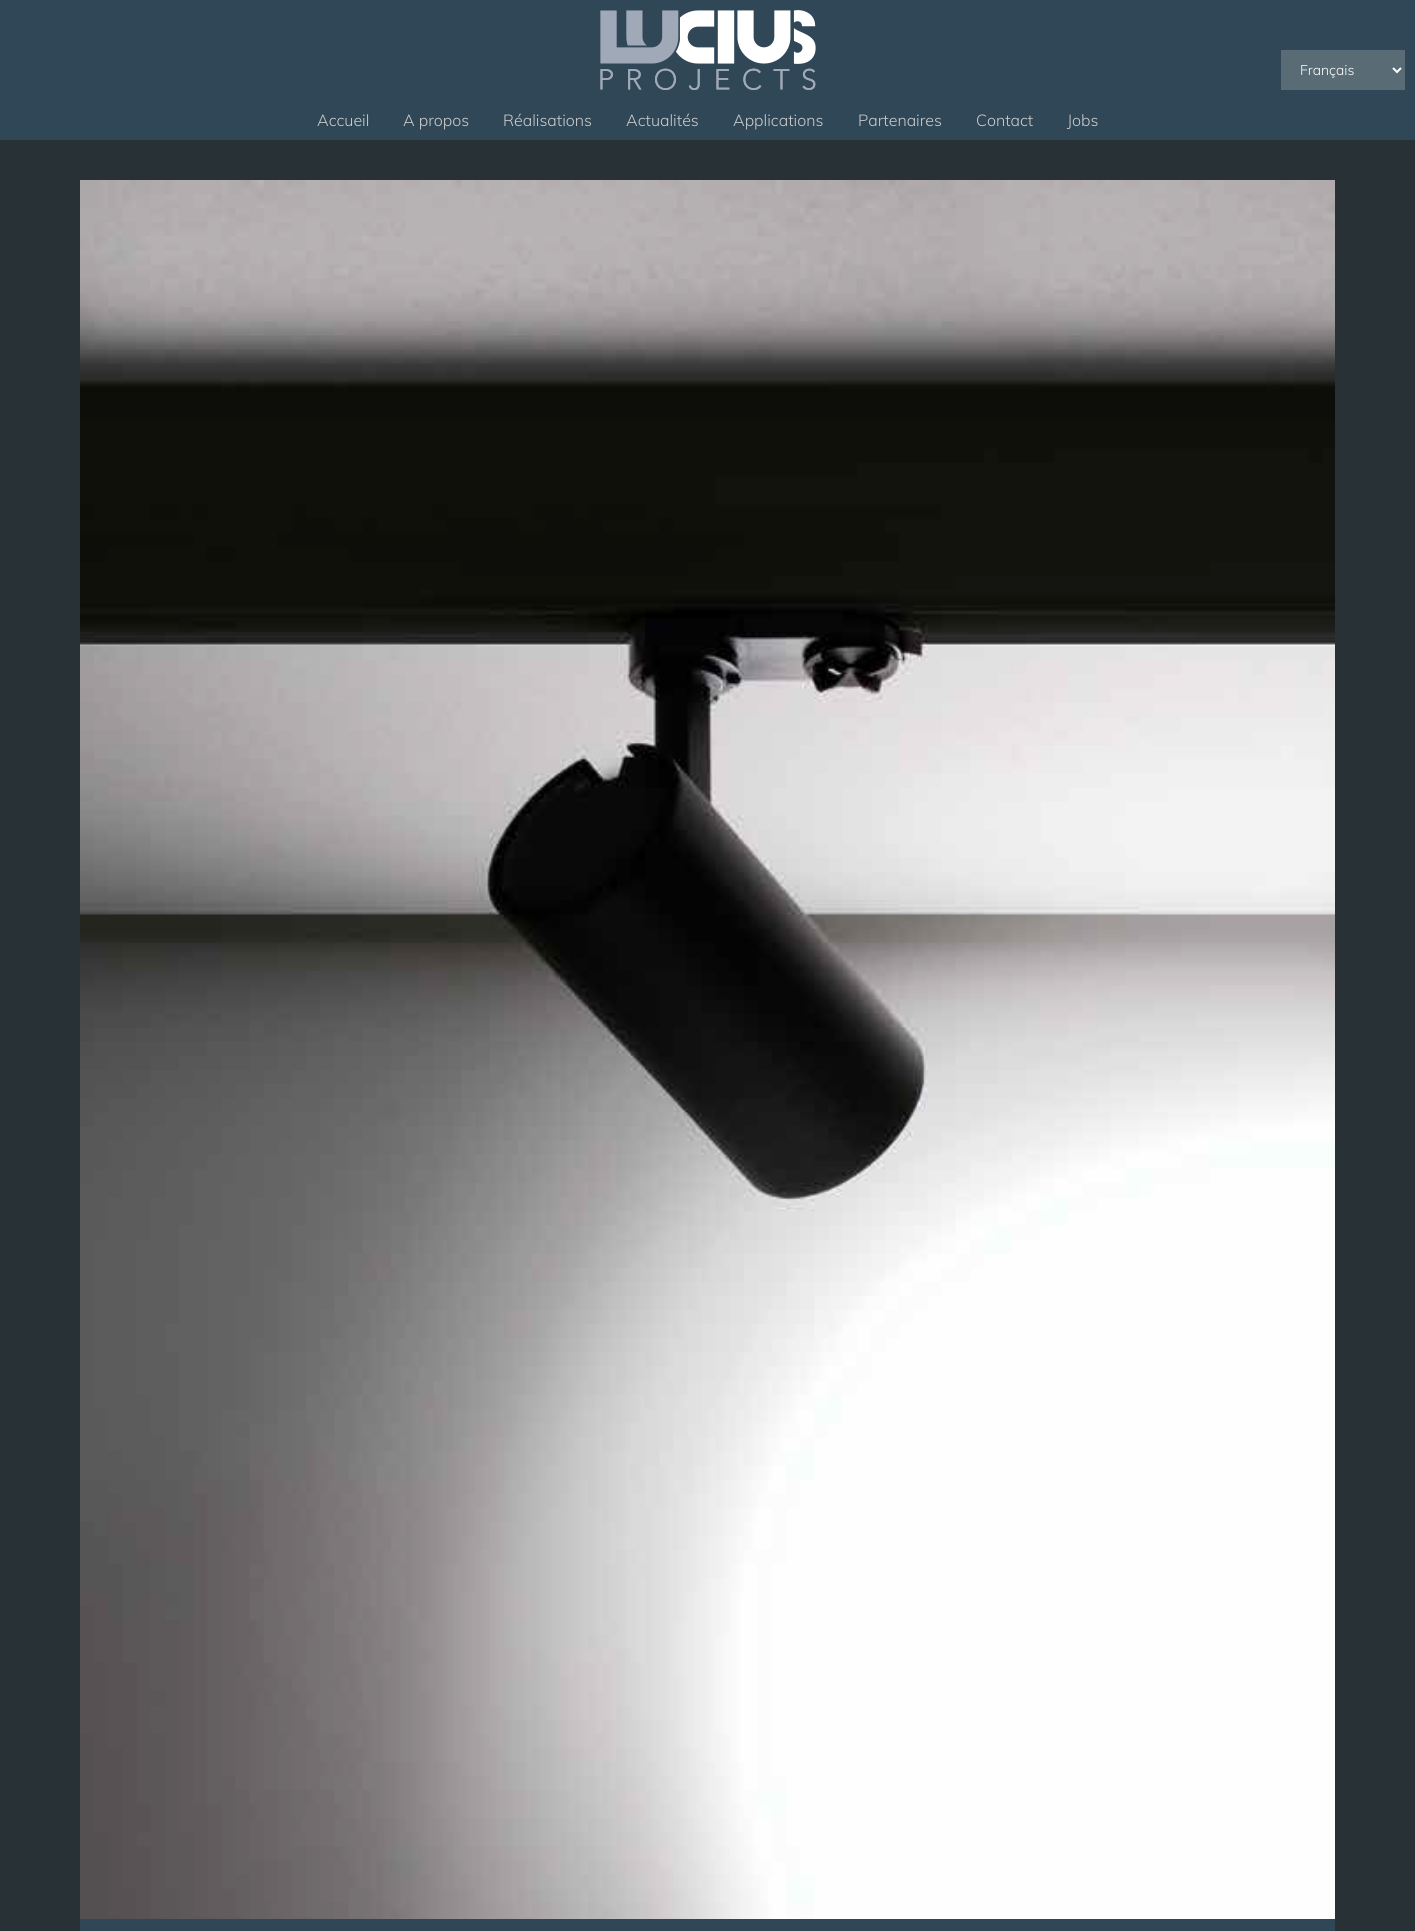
#include <cairo.h>
#include <math.h>
#include <stddef.h>


static void set_color(cairo_t *cr, unsigned color) {
    cairo_set_source_rgb(cr, (color >> 16) / 255.0, (color >> 8 & 255) / 255.0, (color & 255) / 255.0);
}

static void draw_text(cairo_t *cr, double x, double y, const char *s, const char *family, double size, int italic, int bold, unsigned color) {
    cairo_select_font_face(cr, family, italic ? CAIRO_FONT_SLANT_ITALIC : CAIRO_FONT_SLANT_NORMAL,
        bold ? CAIRO_FONT_WEIGHT_BOLD : CAIRO_FONT_WEIGHT_NORMAL);
    cairo_set_font_size(cr, size);
    set_color(cr, color);
    cairo_move_to(cr, x, y);
    cairo_show_text(cr, s);
}

static void fill_rect(cairo_t *cr, double x, double y, double w, double h, unsigned color) {
    set_color(cr, color);
    cairo_rectangle(cr, x, y, w, h);
    cairo_fill(cr);
}

static void draw_image(cairo_t *cr, const char *path, double x, double y, double w, double h) {
    cairo_surface_t *image = cairo_image_surface_create_from_png(path);
    cairo_save(cr);
    cairo_set_source_surface(cr, image, x, y);
    cairo_rectangle(cr, x, y, w, h);
    cairo_fill(cr);
    cairo_restore(cr);
    cairo_surface_destroy(image);
}

int main(void) {
    cairo_surface_t *surface = cairo_image_surface_create(CAIRO_FORMAT_RGB24, 1415, 1931);
    cairo_t *cr = cairo_create(surface);
    cairo_font_options_t *options = cairo_font_options_create();
    cairo_font_options_set_hint_metrics(options, CAIRO_HINT_METRICS_OFF);
    cairo_font_options_set_hint_style(options, CAIRO_HINT_STYLE_NONE);
    cairo_set_font_options(cr, options);
    cairo_set_miter_limit(cr, 4);
    set_color(cr, 0x283135);
    cairo_paint(cr);
    fill_rect(cr, 0, 0, 1415, 140, 0x304757);
    draw_image(cr, "assets/img1.png", 600, 10, 216, 80);
    fill_rect(cr, 1281, 50, 124, 40, 0x596C75);
    cairo_new_path(cr);
    cairo_move_to(cr, 1393, 68);
    cairo_line_to(cr, 1397, 72);
    cairo_line_to(cr, 1401, 68);
    set_color(cr, 0xFFFFFF);
    cairo_stroke(cr);
    draw_text(cr, 1300, 75, "Français", "Muli Light", 14, 0, 0, 0xFFFFFF);
    draw_text(cr, 317, 126, "Accueil", "Muli Light", 16, 0, 0, 0xCCCCCC);
    draw_text(cr, 403, 126, "A propos", "Muli Light", 16, 0, 0, 0xCCCCCC);
    draw_text(cr, 503, 126, "Réalisations", "Muli Light", 16, 0, 0, 0xCCCCCC);
    draw_text(cr, 626, 126, "Actualités", "Muli Light", 16, 0, 0, 0xCCCCCC);
    draw_text(cr, 733, 126, "Applications", "Muli Light", 16, 0, 0, 0xCCCCCC);
    draw_text(cr, 858, 126, "Partenaires", "Muli Light", 16, 0, 0, 0xCCCCCC);
    draw_text(cr, 976, 126, "Contact", "Muli Light", 16, 0, 0, 0xCCCCCC);
    draw_text(cr, 1067, 126, "Jobs", "Muli Light", 16, 0, 0, 0xCCCCCC);
    draw_image(cr, "assets/img2.png", 80, 180, 1255, 1739);
    fill_rect(cr, 80, 1919, 1255, 12, 0x304757);
    cairo_surface_write_to_png(surface, "output.png");
    cairo_font_options_destroy(options);
    cairo_destroy(cr);
    cairo_surface_destroy(surface);
    return 0;
}
